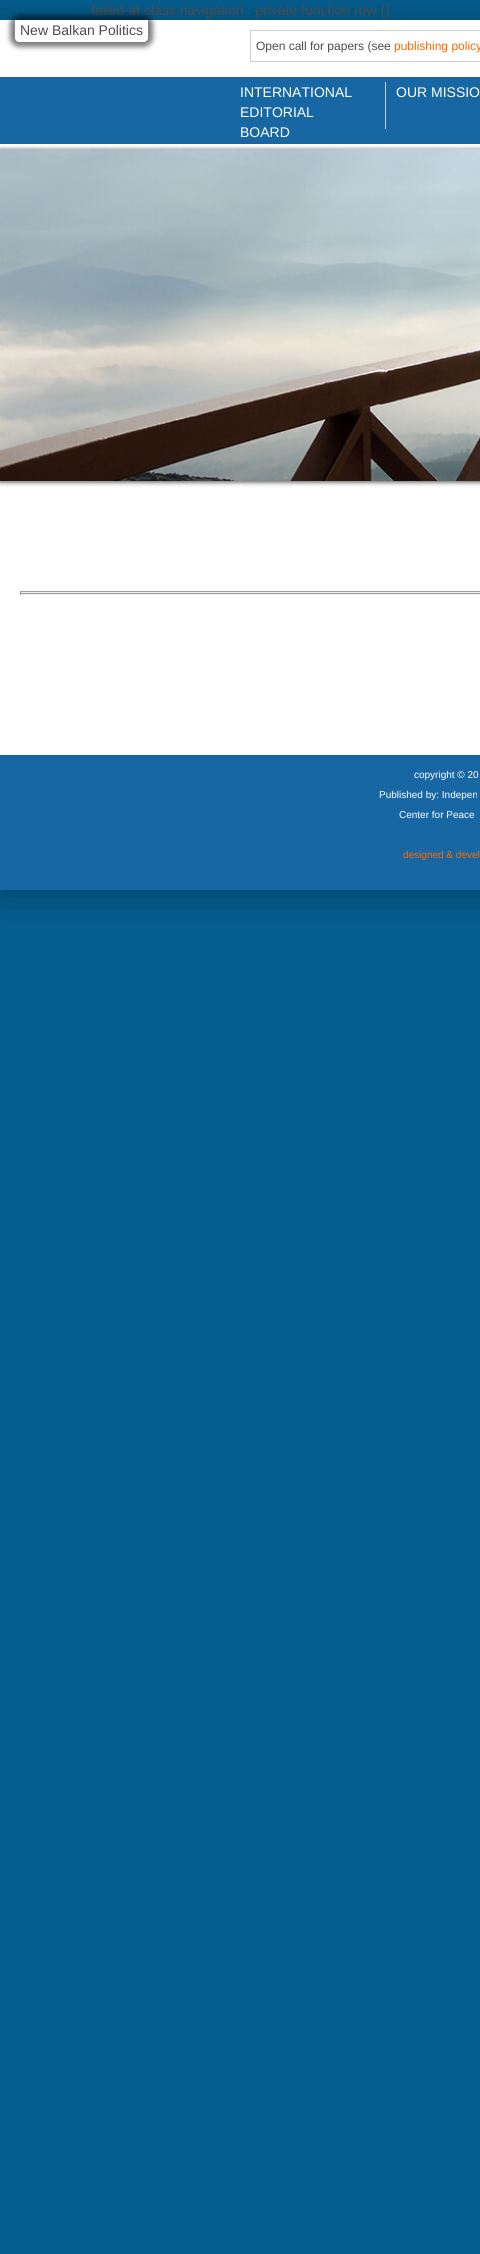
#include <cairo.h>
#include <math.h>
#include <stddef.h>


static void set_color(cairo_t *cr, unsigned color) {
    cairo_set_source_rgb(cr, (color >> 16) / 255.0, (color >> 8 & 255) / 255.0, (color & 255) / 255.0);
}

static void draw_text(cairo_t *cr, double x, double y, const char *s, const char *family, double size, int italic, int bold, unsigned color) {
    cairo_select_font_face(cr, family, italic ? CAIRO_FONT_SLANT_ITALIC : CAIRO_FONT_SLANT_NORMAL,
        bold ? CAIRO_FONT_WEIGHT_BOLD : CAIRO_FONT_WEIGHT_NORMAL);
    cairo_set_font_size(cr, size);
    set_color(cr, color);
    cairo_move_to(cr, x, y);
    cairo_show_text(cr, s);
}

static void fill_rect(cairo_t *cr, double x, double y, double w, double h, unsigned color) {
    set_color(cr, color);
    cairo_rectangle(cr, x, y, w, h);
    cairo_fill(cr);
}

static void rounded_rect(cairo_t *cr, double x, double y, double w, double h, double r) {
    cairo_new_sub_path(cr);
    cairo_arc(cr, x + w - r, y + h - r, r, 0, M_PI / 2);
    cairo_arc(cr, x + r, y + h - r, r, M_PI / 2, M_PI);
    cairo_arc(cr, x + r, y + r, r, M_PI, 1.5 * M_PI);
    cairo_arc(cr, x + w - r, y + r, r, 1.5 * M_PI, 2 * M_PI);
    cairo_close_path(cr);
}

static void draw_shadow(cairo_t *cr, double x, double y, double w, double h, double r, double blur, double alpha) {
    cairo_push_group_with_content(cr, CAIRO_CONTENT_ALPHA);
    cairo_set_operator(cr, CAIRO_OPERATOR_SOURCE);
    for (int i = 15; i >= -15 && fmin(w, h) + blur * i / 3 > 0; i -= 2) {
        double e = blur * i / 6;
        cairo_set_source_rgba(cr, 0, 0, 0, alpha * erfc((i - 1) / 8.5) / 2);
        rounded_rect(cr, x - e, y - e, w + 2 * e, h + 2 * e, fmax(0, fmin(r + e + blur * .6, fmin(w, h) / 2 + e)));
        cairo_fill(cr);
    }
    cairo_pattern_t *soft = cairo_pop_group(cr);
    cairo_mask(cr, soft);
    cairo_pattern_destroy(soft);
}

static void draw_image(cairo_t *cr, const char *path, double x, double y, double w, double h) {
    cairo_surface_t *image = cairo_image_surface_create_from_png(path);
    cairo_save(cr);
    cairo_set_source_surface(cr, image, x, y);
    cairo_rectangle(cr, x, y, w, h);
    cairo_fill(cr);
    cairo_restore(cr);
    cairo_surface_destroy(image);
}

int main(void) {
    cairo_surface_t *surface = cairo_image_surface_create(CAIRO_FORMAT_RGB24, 480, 2254);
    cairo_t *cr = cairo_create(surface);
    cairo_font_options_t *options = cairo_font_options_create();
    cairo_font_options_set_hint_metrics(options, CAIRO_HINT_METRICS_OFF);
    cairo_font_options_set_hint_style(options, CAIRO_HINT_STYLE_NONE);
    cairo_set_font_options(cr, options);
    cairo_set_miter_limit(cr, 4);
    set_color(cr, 0x045E90);
    cairo_paint(cr);
    set_color(cr, 0x000000);
    draw_shadow(cr, -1, 22, 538, 872, 0, 19, 0.3);
    draw_text(cr, 91, 15, "failed at class navigation : private function row ()", "Liberation Sans", 14, 0, 0, 0x4E4A49);
    fill_rect(cr, 0, 20, 480, 735, 0xFFFFFF);
    set_color(cr, 0x000000);
    draw_shadow(cr, 10, 15, 143, 32, 9, 2.5, 0.5);
    set_color(cr, 0xFFFFFF);
    cairo_new_path(cr);
    cairo_move_to(cr, 15, 20);
    cairo_line_to(cr, 148, 20);
    cairo_line_to(cr, 148, 38);
    cairo_curve_to(cr, 148, 40, 146, 42, 144, 42);
    cairo_line_to(cr, 19, 42);
    cairo_curve_to(cr, 17, 42, 15, 40, 15, 38);
    cairo_close_path(cr);
    cairo_fill(cr);
    draw_text(cr, 20, 35, "New Balkan Politics", "Liberation Sans", 14, 0, 0, 0x4E4A49);
    cairo_rectangle(cr, 250.5, 30.5, 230, 31);
    set_color(cr, 0xCCCCCC);
    cairo_set_line_width(cr, 1);
    cairo_stroke(cr);
    draw_text(cr, 256, 50, "Open call for papers (see", "Liberation Sans", 12, 0, 0, 0x4E4A49);
    draw_text(cr, 394, 50, "publishing policy", "Liberation Sans", 12, 0, 0, 0xFA6900);
    fill_rect(cr, 0, 77, 480, 67, 0x1767A4);
    fill_rect(cr, 385, 82, 1, 47, 0xCCCCCC);
    draw_text(cr, 240, 97, "INTERNATIONAL", "Liberation Sans", 14, 0, 0, 0xFFFFFF);
    draw_text(cr, 240, 117, "EDITORIAL", "Liberation Sans", 14, 0, 0, 0xFFFFFF);
    draw_text(cr, 240, 137, "BOARD", "Liberation Sans", 14, 0, 0, 0xFFFFFF);
    draw_text(cr, 396, 97, "OUR MISSIO", "Liberation Sans", 14, 0, 0, 0xFFFFFF);
    set_color(cr, 0x4A4A4A);
    draw_shadow(cr, 0, 150, 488, 332, 0, 2.5, 1);
    draw_image(cr, "assets/img1.png", 0, 149, 480, 332);
    fill_rect(cr, 20, 591, 460, 1, 0x9F9F9F);
    fill_rect(cr, 20, 592, 460, 1, 0xEEEEEE);
    fill_rect(cr, 20, 591, 1, 2, 0x9F9F9F);
    fill_rect(cr, 20, 593, 460, 1, 0x9F9F9F);
    fill_rect(cr, 20, 594, 460, 1, 0xEEEEEE);
    fill_rect(cr, 20, 593, 1, 2, 0x9F9F9F);
    fill_rect(cr, 0, 755, 480, 135, 0x1867A5);
    draw_text(cr, 414, 778, "copyright © 20", "Liberation Sans", 10, 0, 0, 0xFFFFFF);
    draw_text(cr, 379, 798, "Published by: Indepen", "Liberation Sans", 10, 0, 0, 0xFFFFFF);
    draw_text(cr, 399, 818, "Center for Peace", "Liberation Sans", 10, 0, 0, 0xFFFFFF);
    draw_text(cr, 403, 858, "designed & devel", "Liberation Sans", 10, 0, 0, 0xFA6900);
    cairo_surface_write_to_png(surface, "output.png");
    cairo_font_options_destroy(options);
    cairo_destroy(cr);
    cairo_surface_destroy(surface);
    return 0;
}
